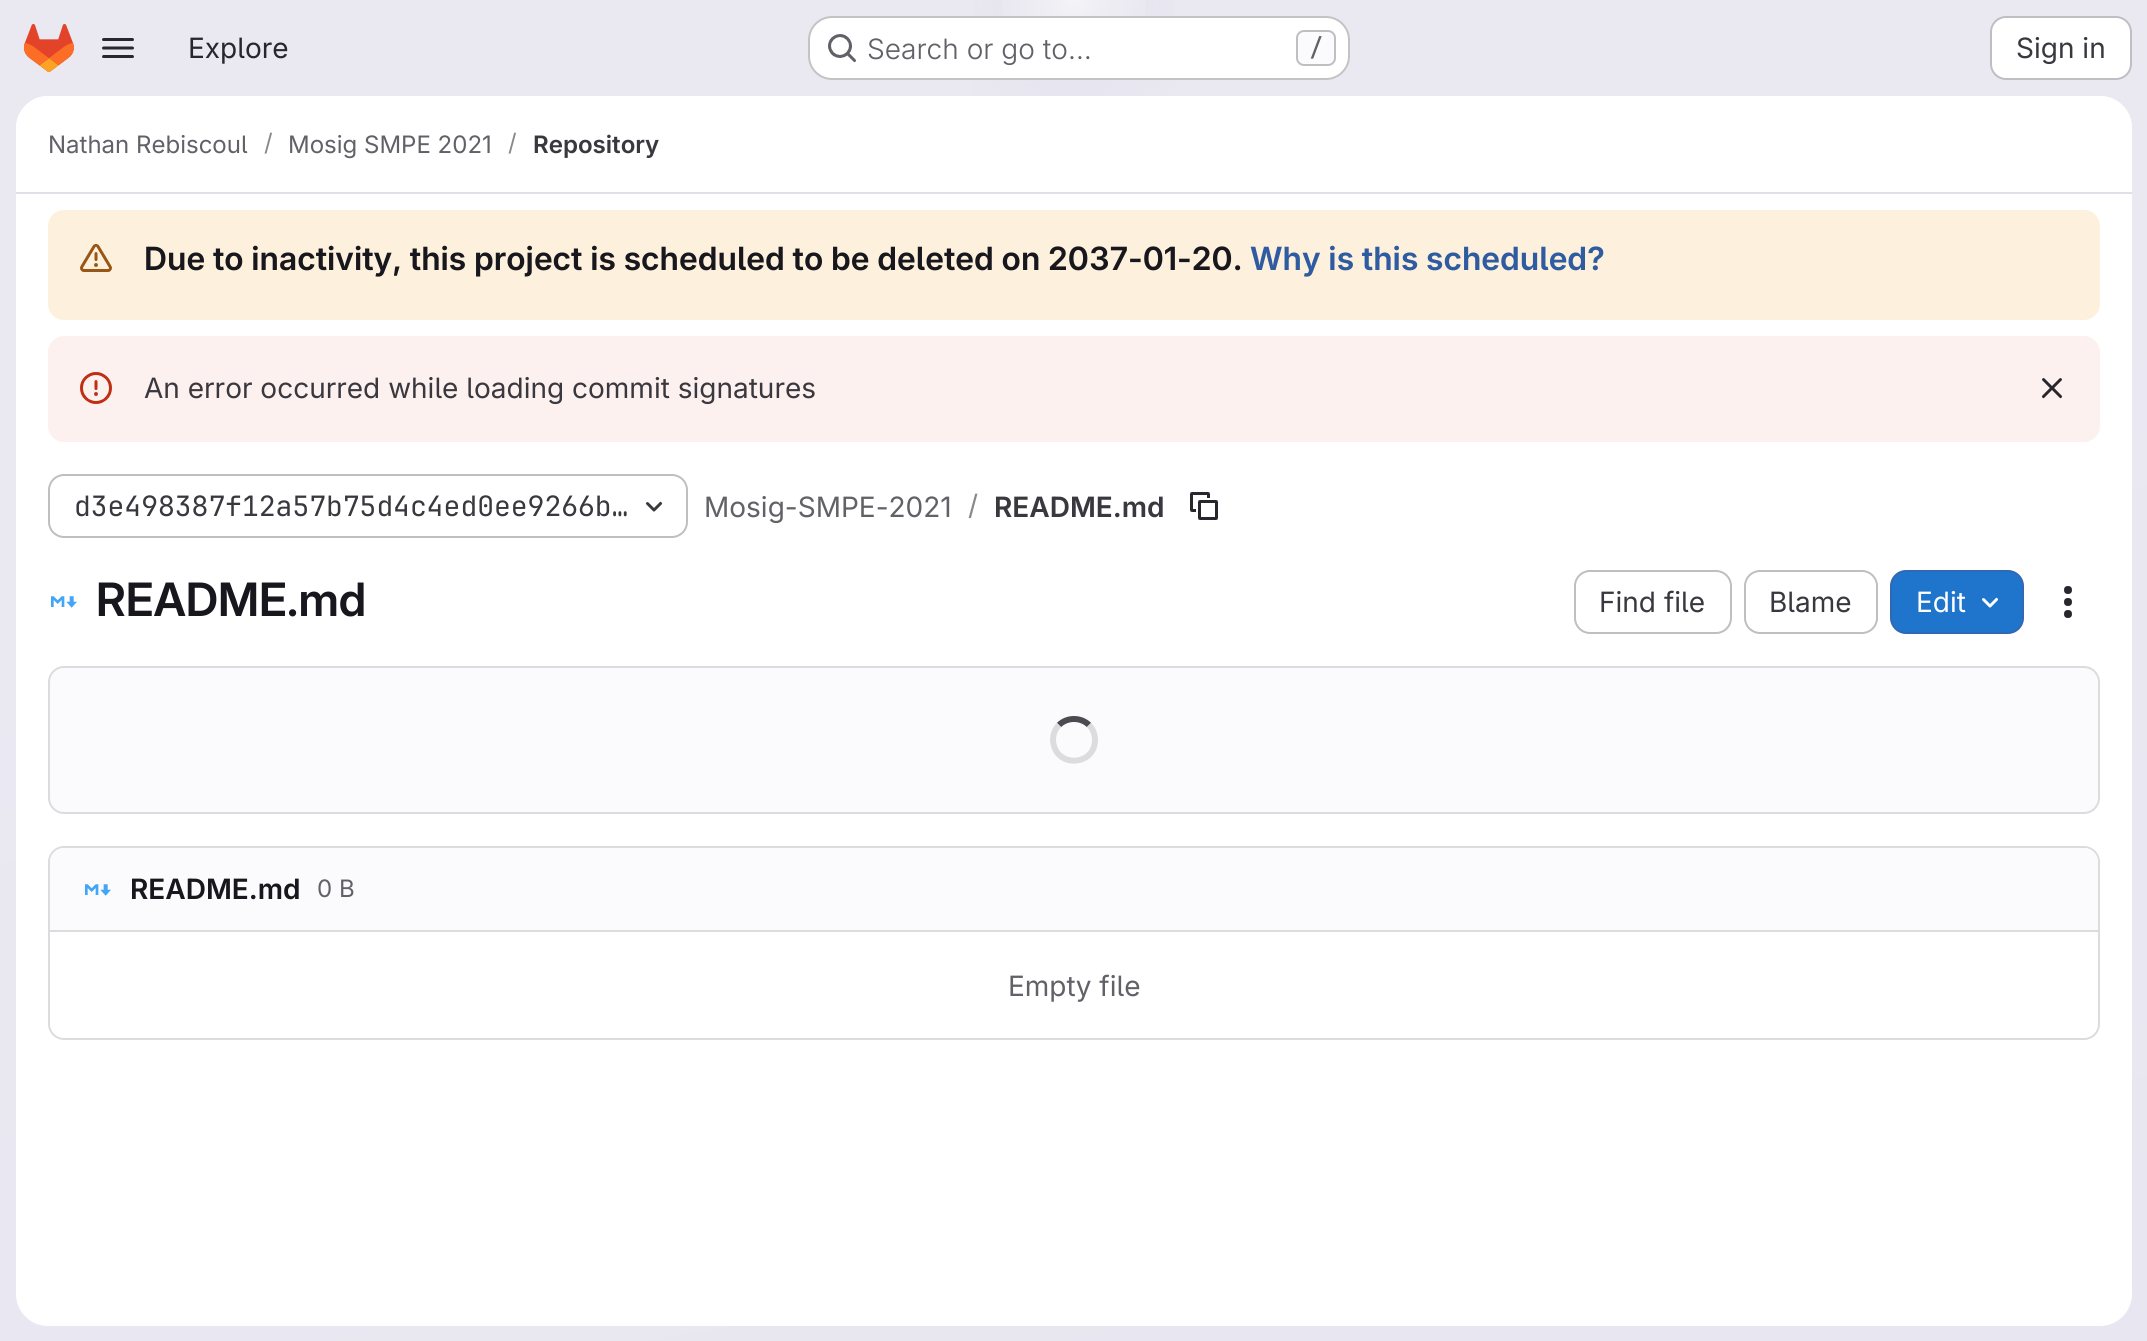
#include <cairo.h>
#include <math.h>
#include <stddef.h>


static void set_color(cairo_t *cr, unsigned color) {
    cairo_set_source_rgb(cr, (color >> 16) / 255.0, (color >> 8 & 255) / 255.0, (color & 255) / 255.0);
}

static void draw_text(cairo_t *cr, double x, double y, const char *s, const char *family, double size, int italic, int bold, unsigned color) {
    cairo_select_font_face(cr, family, italic ? CAIRO_FONT_SLANT_ITALIC : CAIRO_FONT_SLANT_NORMAL,
        bold ? CAIRO_FONT_WEIGHT_BOLD : CAIRO_FONT_WEIGHT_NORMAL);
    cairo_set_font_size(cr, size);
    set_color(cr, color);
    cairo_move_to(cr, x, y);
    cairo_show_text(cr, s);
}

static void fill_rect(cairo_t *cr, double x, double y, double w, double h, unsigned color) {
    set_color(cr, color);
    cairo_rectangle(cr, x, y, w, h);
    cairo_fill(cr);
}

static void rounded_rect(cairo_t *cr, double x, double y, double w, double h, double r) {
    cairo_new_sub_path(cr);
    cairo_arc(cr, x + w - r, y + h - r, r, 0, M_PI / 2);
    cairo_arc(cr, x + r, y + h - r, r, M_PI / 2, M_PI);
    cairo_arc(cr, x + r, y + r, r, M_PI, 1.5 * M_PI);
    cairo_arc(cr, x + w - r, y + r, r, 1.5 * M_PI, 2 * M_PI);
    cairo_close_path(cr);
}

static void draw_image(cairo_t *cr, const char *path, double x, double y, double w, double h) {
    cairo_surface_t *image = cairo_image_surface_create_from_png(path);
    cairo_save(cr);
    cairo_set_source_surface(cr, image, x, y);
    cairo_rectangle(cr, x, y, w, h);
    cairo_fill(cr);
    cairo_restore(cr);
    cairo_surface_destroy(image);
}

int main(void) {
    cairo_surface_t *surface = cairo_image_surface_create(CAIRO_FORMAT_RGB24, 2147, 1341);
    cairo_t *cr = cairo_create(surface);
    cairo_font_options_t *options = cairo_font_options_create();
    cairo_font_options_set_hint_metrics(options, CAIRO_HINT_METRICS_OFF);
    cairo_font_options_set_hint_style(options, CAIRO_HINT_STYLE_NONE);
    cairo_set_font_options(cr, options);
    cairo_set_miter_limit(cr, 4);
    cairo_pattern_t *gradient;
    set_color(cr, 0xFFFFFF);
    cairo_paint(cr);
    gradient = cairo_pattern_create_linear(1221, 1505, 927, -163);
    cairo_pattern_add_color_stop_rgba(gradient, 0, 0.91, 0.902, 0.941, 1);
    cairo_pattern_add_color_stop_rgba(gradient, 0.7, 0.918, 0.914, 0.949, 1);
    cairo_set_source(cr, gradient);
    cairo_pattern_destroy(gradient);
    cairo_rectangle(cr, 0, 0, 2147, 1341);
    cairo_fill(cr);
    gradient = cairo_pattern_create_radial(0, 0, 0, 0, 0, 1);
    cairo_pattern_set_matrix(gradient, &(cairo_matrix_t){1.0 / 1074, 0, 0, 1.0 / 1342, -1.0 * 1074 / 1074, -1.0 * 0 / 1342});
    cairo_pattern_add_color_stop_rgba(gradient, 0, 0.894, 0.886, 0.929, 1);
    cairo_pattern_add_color_stop_rgba(gradient, 0.13, 0.894, 0.886, 0.929, 0);
    cairo_set_source(cr, gradient);
    cairo_pattern_destroy(gradient);
    cairo_rectangle(cr, 973, 0, 202, 96);
    cairo_fill(cr);
    gradient = cairo_pattern_create_radial(0, 0, 0, 0, 0, 1);
    cairo_pattern_set_matrix(gradient, &(cairo_matrix_t){1.0 / 1074, 0, 0, 1.0 / 1342, -1.0 * 1074 / 1074, -1.0 * 0 / 1342});
    cairo_pattern_add_color_stop_rgba(gradient, 0, 0.894, 0.886, 0.925, 1);
    cairo_pattern_add_color_stop_rgba(gradient, 0.09, 0.894, 0.886, 0.925, 0);
    cairo_set_source(cr, gradient);
    cairo_pattern_destroy(gradient);
    cairo_rectangle(cr, 1040, 0, 74, 43);
    cairo_fill(cr);
    gradient = cairo_pattern_create_radial(1074, 0, 0, 1074, 0, 1719);
    cairo_pattern_add_color_stop_rgba(gradient, 0, 1, 1, 1, 0.6);
    cairo_pattern_add_color_stop_rgba(gradient, 0.05, 1, 1, 1, 0);
    cairo_set_source(cr, gradient);
    cairo_pattern_destroy(gradient);
    cairo_rectangle(cr, 1002, 0, 144, 73);
    cairo_fill(cr);
    draw_image(cr, "assets/img1.png", 24, 24, 50, 48);
    draw_image(cr, "assets/img2.png", 102, 38, 32, 20);
    draw_text(cr, 188, 58, "Explore", "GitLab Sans", 28, 0, 0, 0x28272D);
    set_color(cr, 0xFFFFFF);
    rounded_rect(cr, 808, 16, 542, 64, 24);
    cairo_fill(cr);
    rounded_rect(cr, 809, 17, 540, 62, 23);
    cairo_set_source_rgba(cr, 0.02, 0.02, 0.024, 0.24);
    cairo_stroke(cr);
    draw_image(cr, "assets/img3.png", 828, 34, 29, 29);
    draw_text(cr, 867, 59, "Search or go to…", "GitLab Sans Light", 28, 0, 0, 0x626168);
    set_color(cr, 0xFBFAFD);
    rounded_rect(cr, 1297, 31, 38, 34, 7);
    cairo_fill_preserve(cr);
    set_color(cr, 0xBFBFC3);
    cairo_stroke(cr);
    draw_text(cr, 1309, 56, "/", "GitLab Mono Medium", 24, 0, 0, 0x626168);
    set_color(cr, 0xFFFFFF);
    rounded_rect(cr, 1991, 17, 140, 62, 15);
    cairo_fill_preserve(cr);
    set_color(cr, 0xBFBFC3);
    cairo_stroke(cr);
    draw_text(cr, 2016, 58, "Sign in", "GitLab Sans", 28, 0, 0, 0x3A383F);
    set_color(cr, 0xFFFFFF);
    rounded_rect(cr, 16, 96, 2116, 1230, 32);
    cairo_fill(cr);
    cairo_new_path(cr);
    cairo_move_to(cr, 48, 96);
    cairo_line_to(cr, 2100, 96);
    cairo_curve_to(cr, 2117.5, 96, 2132, 110.5, 2132, 128);
    cairo_line_to(cr, 2132, 194);
    cairo_line_to(cr, 16, 194);
    cairo_line_to(cr, 16, 128);
    cairo_curve_to(cr, 16, 110.5, 30.5, 96, 48, 96);
    cairo_close_path(cr);
    cairo_fill(cr);
    fill_rect(cr, 16, 192, 2116, 2, 0xE1DFEC);
    draw_text(cr, 48, 153, "Nathan Rebiscoul", "GitLab Sans", 24, 0, 0, 0x626168);
    draw_text(cr, 264, 151, "/", "GitLab Sans", 24, 0, 0, 0x89888D);
    draw_text(cr, 288, 153, "Mosig SMPE 2021", "GitLab Sans", 24, 0, 0, 0x626168);
    draw_text(cr, 508, 151, "/", "GitLab Sans", 24, 0, 0, 0x89888D);
    draw_text(cr, 533, 153, "Repository", "GitLab Sans SemiBold", 24, 0, 0, 0x3A383F);
    set_color(cr, 0xFDF1DD);
    rounded_rect(cr, 48, 210, 2052, 110, 16);
    cairo_fill(cr);
    draw_image(cr, "assets/img4.png", 80, 244, 32, 28);
    draw_text(cr, 144, 270, "Due to inactivity, this project is scheduled to be deleted on 2037-01-20.", "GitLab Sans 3 SemiBold", 32, 0, 0, 0x18171D);
    draw_text(cr, 1250, 270, "Why is this scheduled?", "GitLab Sans 3 SemiBold", 32, 0, 0, 0x2F5CA0);
    set_color(cr, 0xFCF1EF);
    rounded_rect(cr, 48, 336, 2052, 106, 16);
    cairo_fill(cr);
    draw_image(cr, "assets/img5.png", 80, 372, 32, 32);
    draw_text(cr, 144, 398, "An error occurred while loading commit signatures", "GitLab Sans", 28, 0, 0, 0x3A383F);
    draw_image(cr, "assets/img6.png", 2041, 378, 22, 21);
    rounded_rect(cr, 49, 475, 638, 62, 15);
    set_color(cr, 0xBFBFC3);
    cairo_stroke(cr);
    draw_text(cr, 74, 516, "d3e498387f12a57b75d4c4ed0ee9266b…", "GitLab Mono", 28, 0, 0, 0x3A383F);
    draw_image(cr, "assets/img7.png", 645, 501, 18, 11);
    draw_text(cr, 704, 517, "Mosig-SMPE-2021", "GitLab Sans", 28, 0, 0, 0x626168);
    draw_text(cr, 968, 515, "/", "GitLab Sans", 28, 0, 0, 0x89888D);
    draw_text(cr, 994, 517, "README.md", "GitLab Sans SemiBold", 28, 0, 0, 0x3A383F);
    draw_image(cr, "assets/img8.png", 1190, 492, 28, 28);
    draw_image(cr, "assets/img9.png", 51, 596, 26, 12);
    draw_text(cr, 96, 616, "README.md", "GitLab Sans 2 SemiBold", 46, 0, 0, 0x18171D);
    rounded_rect(cr, 1575, 571, 156, 62, 15);
    set_color(cr, 0xBFBFC3);
    cairo_stroke(cr);
    draw_text(cr, 1599, 612, "Find file", "GitLab Sans", 28, 0, 0, 0x3A383F);
    rounded_rect(cr, 1745, 571, 132, 62, 15);
    set_color(cr, 0xBFBFC3);
    cairo_stroke(cr);
    draw_text(cr, 1769, 612, "Blame", "GitLab Sans", 28, 0, 0, 0x3A383F);
    set_color(cr, 0x1F75CB);
    rounded_rect(cr, 1891, 571, 132, 62, 15);
    cairo_fill_preserve(cr);
    set_color(cr, 0x2F68B4);
    cairo_stroke(cr);
    draw_text(cr, 1916, 612, "Edit", "GitLab Sans", 28, 0, 0, 0xFFFFFF);
    draw_image(cr, "assets/img10.png", 1982, 597, 17, 11);
    draw_image(cr, "assets/img11.png", 2064, 586, 8, 32);
    set_color(cr, 0xFBFAFD);
    rounded_rect(cr, 49, 667, 2050, 146, 15);
    cairo_fill_preserve(cr);
    set_color(cr, 0xDCDCDE);
    cairo_stroke(cr);
    cairo_new_path(cr);
    cairo_move_to(cr, 1059, 725);
    cairo_curve_to(cr, 1067, 717, 1081, 717, 1089, 725);
    set_color(cr, 0x4C4B51);
    cairo_set_line_width(cr, 6);
    cairo_stroke(cr);
    cairo_new_path(cr);
    cairo_move_to(cr, 1089, 725);
    cairo_curve_to(cr, 1093, 729, 1095, 734.5, 1095, 740);
    cairo_curve_to(cr, 1095, 765, 1058.5, 768.5, 1053.5, 744);
    cairo_curve_to(cr, 1052, 737.5, 1054, 730, 1059, 725);
    set_color(cr, 0xDCDCDE);
    cairo_stroke(cr);
    rounded_rect(cr, 49, 847, 2050, 192, 15);
    cairo_set_line_width(cr, 2);
    cairo_stroke(cr);
    set_color(cr, 0xFBFAFD);
    cairo_new_path(cr);
    cairo_move_to(cr, 64, 848);
    cairo_line_to(cr, 2084, 848);
    cairo_curve_to(cr, 2091.5, 848, 2098, 854.5, 2098, 862);
    cairo_line_to(cr, 2098, 932);
    cairo_line_to(cr, 50, 932);
    cairo_line_to(cr, 50, 862);
    cairo_curve_to(cr, 50, 854.5, 56.5, 848, 64, 848);
    cairo_close_path(cr);
    cairo_fill(cr);
    fill_rect(cr, 50, 930, 2048, 2, 0xDCDCDE);
    draw_image(cr, "assets/img12.png", 85, 884, 26, 12);
    draw_text(cr, 130, 899, "README.md", "GitLab Sans SemiBold", 28, 0, 0, 0x18171D);
    draw_text(cr, 317, 897, "0 B", "GitLab Sans", 24, 0, 0, 0x626168);
    draw_text(cr, 1008, 996, "Empty file", "GitLab Sans", 28, 0, 0, 0x626168);
    cairo_surface_write_to_png(surface, "output.png");
    cairo_font_options_destroy(options);
    cairo_destroy(cr);
    cairo_surface_destroy(surface);
    return 0;
}
